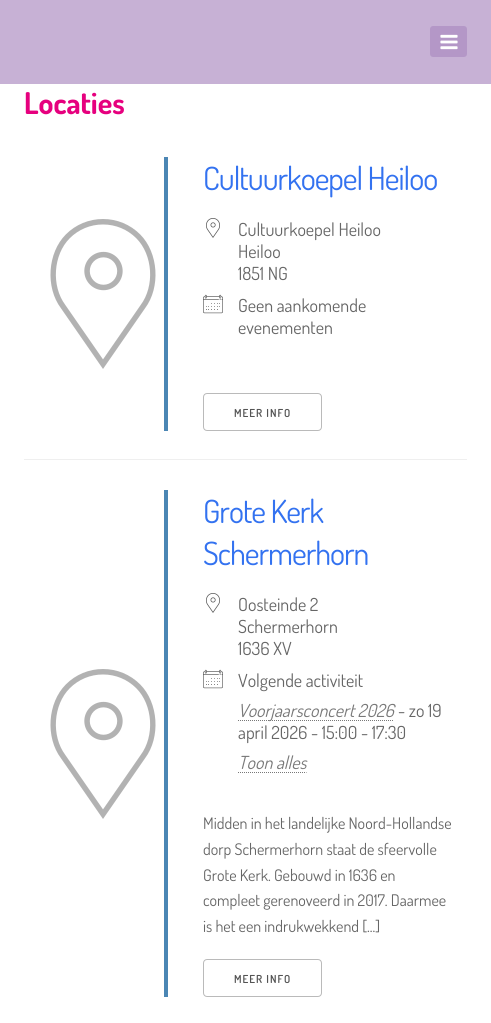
import math
import cairocffi as cairo

surface = cairo.ImageSurface(cairo.FORMAT_RGB24, 491, 1023)
ctx = cairo.Context(surface)
options = cairo.FontOptions()
options.set_hint_metrics(cairo.HINT_METRICS_OFF)
options.set_hint_style(cairo.HINT_STYLE_NONE)
ctx.set_font_options(options)
ctx.set_miter_limit(4)


def rgb(r, g, b):
    ctx.set_source_rgb(r / 255, g / 255, b / 255)


def face(family, size, italic, bold):
    ctx.select_font_face(family, cairo.FONT_SLANT_ITALIC if italic else cairo.FONT_SLANT_NORMAL, cairo.FONT_WEIGHT_BOLD if bold else cairo.FONT_WEIGHT_NORMAL)
    ctx.set_font_size(size)


def label(x, y, s):
    ctx.move_to(x, y)
    ctx.show_text(s)


def tracked(x, y, s, letter, word):
    ctx.move_to(x, y)
    for ch in s:
        ctx.show_text(ch)
        ctx.rel_move_to(letter + word * (ch == ' '), 0)


def rect(x, y, w, h):
    ctx.rectangle(x, y, w, h)
    ctx.fill()


def rrect(x, y, w, h, r):
    ctx.new_sub_path()
    for i, (u, v) in enumerate([(x + w - r, y + h - r), (x + r, y + h - r), (x + r, y + r), (x + w - r, y + r)]):
        ctx.arc(u, v, r, i * math.pi / 2, (i + 1) * math.pi / 2)
    ctx.close_path()


def image(path, x, y, w, h):
    ctx.save()
    ctx.set_source_surface(cairo.ImageSurface.create_from_png(path), x, y)
    ctx.rectangle(x, y, w, h)
    ctx.fill()
    ctx.restore()


rgb(255, 255, 255)
ctx.paint()
rgb(199, 177, 213)
rect(0, 0, 491, 84)
rgb(180, 151, 199)
rrect(430, 26, 37, 31, 3)
ctx.fill()
image('image0.png', 440, 34, 18, 16)
face('Dosis', 30, 0, 1)
rgb(230, 0, 126)
label(24, 114, 'Locaties')
image('image1.png', 50, 219, 106, 150)
rgb(75, 134, 180)
rect(164, 157, 4, 274)
face('Dosis', 32, 0, 0)
rgb(51, 114, 240)
tracked(203, 190, 'Cultuurkoepel Heiloo', -1, 0)
image('image2.png', 206, 218, 14, 20)
face('Dosis', 18, 0, 0)
rgb(102, 102, 102)
label(238, 236, 'Cultuurkoepel Heiloo')
label(238, 258, 'Heiloo')
label(238, 280, '1851 NG')
image('image3.png', 203, 294, 20, 20)
label(238, 312, 'Geen aankomende')
label(238, 334, 'evenementen')
rrect(203.5, 393.5, 118, 37, 3.5)
rgb(186, 186, 186)
ctx.set_line_width(1)
ctx.stroke()
face('Dosis SemiBold', 11, 0, 0)
rgb(84, 84, 84)
tracked(234, 417, 'MEER INFO', 1, 0)
rgb(239, 239, 239)
rect(24, 459, 443, 1)
image('image1.png', 50, 669, 106, 150)
rgb(75, 134, 180)
rect(164, 490, 4, 507)
face('Dosis', 32, 0, 0)
rgb(51, 114, 240)
tracked(203, 523, 'Grote Kerk', -1, 0)
tracked(203, 565, 'Schermerhorn', -1, 0)
image('image2.png', 206, 593, 14, 20)
face('Dosis', 18, 0, 0)
rgb(102, 102, 102)
label(238, 611, 'Oosteinde 2')
label(238, 633, 'Schermerhorn')
label(238, 655, '1636 XV')
image('image3.png', 203, 669, 20, 20)
label(238, 687, 'Volgende activiteit')
ctx.new_path()
ctx.move_to(238, 720.5)
ctx.line_to(394, 720.5)
rgb(120, 120, 120)
ctx.set_dash([1, 1])
ctx.stroke()
face('Dosis', 18, 1, 0)
label(238, 717, 'Voorjaarsconcert 2026')
face('Dosis', 18, 0, 0)
rgb(102, 102, 102)
label(398, 717, '- zo 19')
label(238, 739, 'april 2026 - 15:00 - 17:30')
face('Dosis', 18, 1, 0)
rgb(120, 120, 120)
label(238, 769, 'Toon alles')
ctx.new_path()
ctx.move_to(238, 772.5)
ctx.line_to(306.5, 772.5)
ctx.stroke()
face('Dosis', 16, 0, 0)
rgb(102, 102, 102)
label(203, 829, 'Midden in het landelijke Noord-Hollandse')
label(203, 855, 'dorp Schermerhorn staat de sfeervolle')
label(203, 881, 'Grote Kerk. Gebouwd in 1636 en')
label(203, 906, 'compleet gerenoveerd in 2017. Daarmee')
label(203, 932, 'is het een indrukwekkend [...]')
rrect(203.5, 959.5, 118, 37, 3.5)
rgb(186, 186, 186)
ctx.set_dash([])
ctx.stroke()
face('Dosis SemiBold', 11, 0, 0)
rgb(84, 84, 84)
tracked(234, 983, 'MEER INFO', 1, 0)
surface.write_to_png('render.png')
